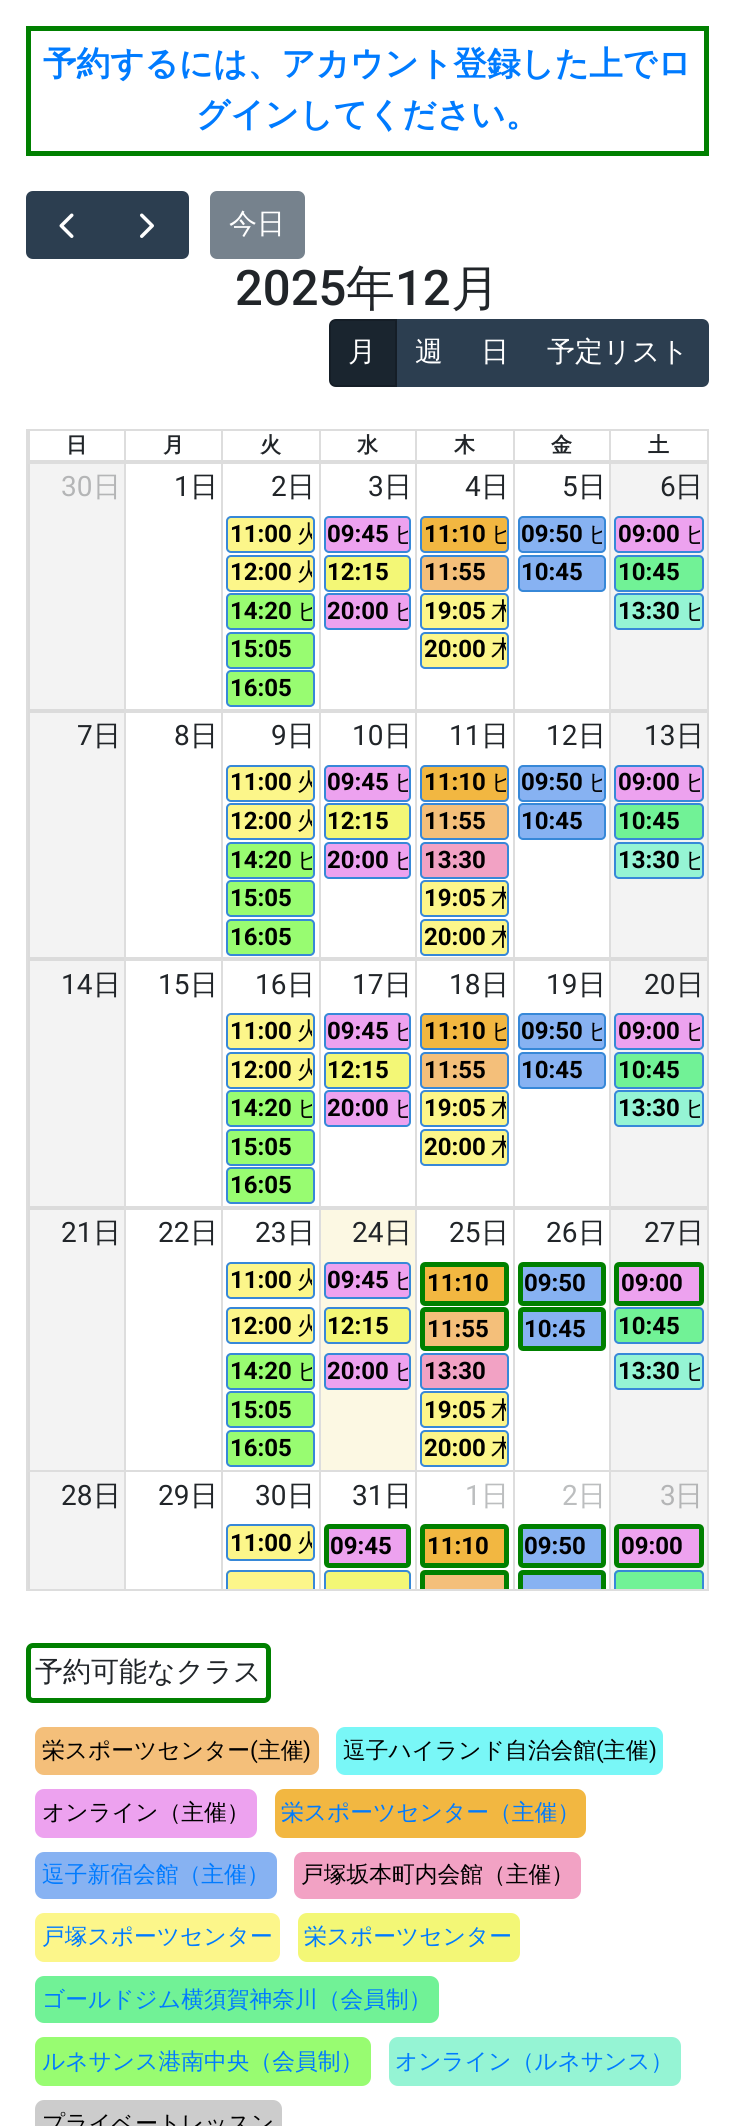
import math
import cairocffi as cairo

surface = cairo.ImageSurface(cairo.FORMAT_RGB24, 735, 2126)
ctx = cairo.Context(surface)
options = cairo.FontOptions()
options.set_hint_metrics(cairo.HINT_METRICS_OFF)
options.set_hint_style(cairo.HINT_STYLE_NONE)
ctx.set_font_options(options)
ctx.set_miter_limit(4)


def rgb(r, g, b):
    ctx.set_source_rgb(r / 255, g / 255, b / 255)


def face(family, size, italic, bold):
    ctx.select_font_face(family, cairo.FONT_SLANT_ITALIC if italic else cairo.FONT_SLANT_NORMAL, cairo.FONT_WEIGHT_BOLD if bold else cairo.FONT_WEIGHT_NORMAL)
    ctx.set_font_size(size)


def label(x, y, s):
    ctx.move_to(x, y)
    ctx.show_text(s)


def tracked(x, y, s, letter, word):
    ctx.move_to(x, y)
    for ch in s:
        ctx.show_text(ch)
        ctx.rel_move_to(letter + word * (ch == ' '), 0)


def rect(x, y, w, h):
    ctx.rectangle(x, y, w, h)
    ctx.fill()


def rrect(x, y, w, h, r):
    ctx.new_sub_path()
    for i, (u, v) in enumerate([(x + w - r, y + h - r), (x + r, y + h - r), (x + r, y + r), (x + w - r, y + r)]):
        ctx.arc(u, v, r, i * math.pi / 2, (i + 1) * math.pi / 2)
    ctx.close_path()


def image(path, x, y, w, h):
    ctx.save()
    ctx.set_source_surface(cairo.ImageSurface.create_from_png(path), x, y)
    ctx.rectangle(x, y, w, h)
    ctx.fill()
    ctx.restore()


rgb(255, 255, 255)
ctx.paint()
rgb(243, 243, 243)
rect(30, 1472, 94, 117)
rect(611, 1210, 96, 260)
rect(30, 1210, 94, 260)
rect(611, 961, 96, 245)
rect(30, 961, 94, 245)
rect(611, 713, 96, 244)
rect(30, 713, 94, 244)
rect(611, 464, 96, 245)
rect(30, 464, 94, 245)
ctx.rectangle(28.5, 28.5, 678, 125)
rgb(0, 128, 0)
ctx.set_line_width(5)
ctx.stroke()
face('WenQuanYi Zen Hei', 33.6, 0, 1)
rgb(0, 123, 255)
label(43, 75, '予約するには、アカウント登録した上でロ')
label(196, 126, 'グインしてください。')
rgb(44, 62, 80)
ctx.new_path()
ctx.move_to(33, 192)
ctx.line_to(108, 192)
ctx.line_to(108, 258)
ctx.line_to(33, 258)
ctx.curve_to(29.5, 258, 27, 255.5, 27, 252)
ctx.line_to(27, 198)
ctx.curve_to(27, 194.5, 29.5, 192, 33, 192)
ctx.close_path()
ctx.fill_preserve()
ctx.set_line_width(2)
ctx.stroke()
image('image0.png', 59, 213, 15, 25)
ctx.new_path()
ctx.move_to(108, 192)
ctx.line_to(182, 192)
ctx.curve_to(185.5, 192, 188, 194.5, 188, 198)
ctx.line_to(188, 252)
ctx.curve_to(188, 255.5, 185.5, 258, 182, 258)
ctx.line_to(108, 258)
ctx.close_path()
ctx.fill_preserve()
ctx.stroke()
image('image1.png', 140, 213, 14, 25)
rgb(118, 130, 141)
rrect(211, 192, 93, 66, 6)
ctx.fill_preserve()
ctx.stroke()
face('WenQuanYi Zen Hei Medium', 28, 0, 0)
rgb(255, 255, 255)
label(229, 233, '今日')
face('Roboto Medium', 49, 0, 0)
rgb(33, 37, 41)
label(235, 305, '2025')
face('WenQuanYi Zen Hei Medium', 49, 0, 0)
label(346, 305, '年')
face('Roboto Medium', 49, 0, 0)
label(395, 305, '12')
face('WenQuanYi Zen Hei Medium', 49, 0, 0)
label(451, 305, '月')
rgb(26, 37, 47)
ctx.new_path()
ctx.move_to(336, 320)
ctx.line_to(396, 320)
ctx.line_to(396, 386)
ctx.line_to(336, 386)
ctx.curve_to(332.5, 386, 330, 383.5, 330, 380)
ctx.line_to(330, 326)
ctx.curve_to(330, 322.5, 332.5, 320, 336, 320)
ctx.close_path()
ctx.fill_preserve()
rgb(21, 30, 39)
ctx.stroke()
face('WenQuanYi Zen Hei Medium', 28, 0, 0)
rgb(255, 255, 255)
label(348, 361, '月')
rgb(44, 62, 80)
rect(397, 319, 130, 68)
rgb(255, 255, 255)
label(415, 361, '週')
label(481, 361, '日')
rgb(44, 62, 80)
ctx.new_path()
ctx.move_to(528, 320)
ctx.line_to(702, 320)
ctx.curve_to(705.5, 320, 708, 322.5, 708, 326)
ctx.line_to(708, 380)
ctx.curve_to(708, 383.5, 705.5, 386, 702, 386)
ctx.line_to(528, 386)
ctx.close_path()
ctx.fill_preserve()
ctx.stroke()
rgb(255, 255, 255)
label(547, 361, '予定リスト')
rgb(221, 221, 221)
rect(26, 429, 683, 2)
rect(26, 462, 683, 2)
rect(707, 462, 2, 1129)
rect(707, 429, 2, 35)
rect(26, 1589, 683, 2)
rect(26, 462, 2, 1129)
rect(26, 429, 2, 35)
rect(609, 460, 100, 2)
rect(609, 429, 2, 33)
rect(513, 460, 98, 2)
rect(513, 429, 2, 33)
rect(415, 460, 100, 2)
rect(415, 429, 2, 33)
rect(319, 460, 98, 2)
rect(319, 429, 2, 33)
rect(221, 460, 99, 2)
rect(221, 429, 2, 33)
rect(124, 460, 98, 2)
rect(124, 429, 2, 33)
rect(28, 460, 98, 2)
rect(28, 429, 2, 33)
face('WenQuanYi Zen Hei', 21, 0, 1)
rgb(33, 37, 41)
label(66, 452, '日')
label(163, 452, '月')
label(260, 452, '火')
label(357, 452, '水')
label(454, 452, '木')
label(551, 452, '金')
label(648, 452, '土')
rgb(219, 219, 219)
rect(28, 709, 96, 4)
rect(28, 464, 2, 247)
rgb(221, 221, 221)
rect(609, 464, 2, 744)
rect(513, 709, 98, 4)
rect(513, 464, 2, 247)
rect(415, 709, 100, 2)
rect(415, 464, 2, 247)
rect(319, 709, 98, 2)
rect(319, 464, 2, 247)
rect(221, 709, 99, 2)
rect(221, 464, 2, 247)
rect(124, 709, 98, 2)
rect(124, 464, 2, 247)
rgb(219, 219, 219)
rect(611, 709, 96, 4)
face('Roboto', 28, 0, 0)
rgb(180, 181, 182)
label(61, 496, '30')
face('WenQuanYi Zen Hei Medium', 28, 0, 0)
label(93, 496, '日')
face('Roboto', 28, 0, 0)
rgb(33, 37, 41)
label(174, 496, '1')
face('WenQuanYi Zen Hei Medium', 28, 0, 0)
label(190, 496, '日')
face('Roboto', 28, 0, 0)
label(271, 496, '2')
face('WenQuanYi Zen Hei Medium', 28, 0, 0)
label(287, 496, '日')
face('Roboto', 28, 0, 0)
label(368, 496, '3')
face('WenQuanYi Zen Hei Medium', 28, 0, 0)
label(384, 496, '日')
face('Roboto', 28, 0, 0)
label(465, 496, '4')
face('WenQuanYi Zen Hei Medium', 28, 0, 0)
label(481, 496, '日')
face('Roboto', 28, 0, 0)
label(562, 496, '5')
face('WenQuanYi Zen Hei Medium', 28, 0, 0)
label(578, 496, '日')
face('Roboto', 28, 0, 0)
label(660, 496, '6')
face('WenQuanYi Zen Hei Medium', 28, 0, 0)
label(675, 496, '日')
rgb(252, 246, 138)
rrect(227, 517, 87, 35, 4)
ctx.fill_preserve()
rgb(55, 136, 216)
ctx.stroke()
face('Roboto', 24, 0, 1)
rgb(0, 0, 0)
label(230, 542, '11:00')
ctx.save()
ctx.rectangle(229, 518, 83, 33)
ctx.clip()
face('WenQuanYi Zen Hei Medium', 24, 0, 0)
tracked(297, 542, '火', 0, -1)
ctx.restore()
rgb(237, 162, 239)
rrect(325, 517, 85, 35, 4)
ctx.fill_preserve()
rgb(55, 136, 216)
ctx.stroke()
rgb(0, 0, 0)
label(327, 542, '09:45')
ctx.save()
ctx.rectangle(327, 518, 81, 33)
ctx.clip()
face('WenQuanYi Zen Hei Medium', 24, 0, 0)
label(394, 542, 'ピ')
ctx.restore()
rgb(242, 183, 65)
rrect(421, 517, 87, 35, 4)
ctx.fill_preserve()
rgb(55, 136, 216)
ctx.stroke()
rgb(0, 0, 0)
label(424, 542, '11:10')
ctx.save()
ctx.rectangle(424, 518, 82, 33)
ctx.clip()
face('WenQuanYi Zen Hei Medium', 24, 0, 0)
label(491, 542, 'ピ')
ctx.restore()
rgb(135, 178, 242)
rrect(519, 517, 86, 35, 4)
ctx.fill_preserve()
rgb(55, 136, 216)
ctx.stroke()
ctx.save()
ctx.rectangle(522, 518, 80, 33)
ctx.clip()
rgb(0, 0, 0)
label(521, 542, '09:50')
face('WenQuanYi Zen Hei Medium', 24, 0, 0)
tracked(588, 542, 'ピ', 0, -1)
ctx.restore()
rgb(237, 162, 239)
rrect(615, 517, 88, 35, 4)
ctx.fill_preserve()
rgb(55, 136, 216)
ctx.stroke()
rgb(0, 0, 0)
label(618, 542, '09:00')
ctx.save()
ctx.rectangle(618, 518, 82, 33)
ctx.clip()
face('WenQuanYi Zen Hei Medium', 24, 0, 0)
label(685, 542, 'ピ')
ctx.restore()
rgb(252, 246, 138)
rrect(227, 556, 87, 35, 4)
ctx.fill_preserve()
rgb(55, 136, 216)
ctx.stroke()
rgb(0, 0, 0)
label(230, 580, '12:00')
ctx.save()
ctx.rectangle(229, 557, 83, 33)
ctx.clip()
face('WenQuanYi Zen Hei Medium', 24, 0, 0)
tracked(297, 580, '火', 0, -1)
ctx.restore()
rgb(243, 247, 118)
rrect(325, 556, 85, 35, 4)
ctx.fill_preserve()
rgb(55, 136, 216)
ctx.stroke()
rgb(0, 0, 0)
label(327, 580, '12:15')
rgb(244, 191, 122)
rrect(421, 556, 87, 35, 4)
ctx.fill_preserve()
rgb(55, 136, 216)
ctx.stroke()
rgb(0, 0, 0)
label(424, 580, '11:55')
rgb(135, 178, 242)
rrect(519, 556, 86, 35, 4)
ctx.fill_preserve()
rgb(55, 136, 216)
ctx.stroke()
rgb(0, 0, 0)
label(521, 580, '10:45')
rgb(113, 242, 150)
rrect(615, 556, 88, 35, 4)
ctx.fill_preserve()
rgb(55, 136, 216)
ctx.stroke()
rgb(0, 0, 0)
label(618, 580, '10:45')
rgb(152, 252, 113)
rrect(227, 594, 87, 35, 4)
ctx.fill_preserve()
rgb(55, 136, 216)
ctx.stroke()
rgb(0, 0, 0)
label(230, 619, '14:20')
ctx.save()
ctx.rectangle(229, 595, 83, 33)
ctx.clip()
face('WenQuanYi Zen Hei Medium', 24, 0, 0)
label(297, 619, 'ピ')
ctx.restore()
rgb(237, 162, 239)
rrect(325, 594, 85, 35, 4)
ctx.fill_preserve()
rgb(55, 136, 216)
ctx.stroke()
rgb(0, 0, 0)
label(327, 619, '20:00')
ctx.save()
ctx.rectangle(327, 595, 81, 33)
ctx.clip()
face('WenQuanYi Zen Hei Medium', 24, 0, 0)
label(394, 619, 'ピ')
ctx.restore()
rgb(252, 246, 138)
rrect(421, 594, 87, 35, 4)
ctx.fill_preserve()
rgb(55, 136, 216)
ctx.stroke()
rgb(0, 0, 0)
label(424, 619, '19:05')
ctx.save()
ctx.rectangle(424, 595, 82, 33)
ctx.clip()
face('WenQuanYi Zen Hei Medium', 24, 0, 0)
tracked(491, 619, '木', 0, -1)
ctx.restore()
rgb(149, 244, 212)
rrect(615, 594, 88, 35, 4)
ctx.fill_preserve()
rgb(55, 136, 216)
ctx.stroke()
rgb(0, 0, 0)
label(618, 619, '13:30')
ctx.save()
ctx.rectangle(618, 595, 82, 33)
ctx.clip()
face('WenQuanYi Zen Hei Medium', 24, 0, 0)
tracked(685, 619, 'ピ', 0, -1)
ctx.restore()
rgb(152, 252, 113)
rrect(227, 633, 87, 35, 4)
ctx.fill_preserve()
rgb(55, 136, 216)
ctx.stroke()
rgb(0, 0, 0)
label(230, 657, '15:05')
rgb(252, 246, 138)
rrect(421, 633, 87, 35, 4)
ctx.fill_preserve()
rgb(55, 136, 216)
ctx.stroke()
rgb(0, 0, 0)
label(424, 657, '20:00')
ctx.save()
ctx.rectangle(424, 634, 82, 33)
ctx.clip()
face('WenQuanYi Zen Hei Medium', 24, 0, 0)
label(491, 657, '木')
ctx.restore()
rgb(152, 252, 113)
rrect(227, 671, 87, 35, 4)
ctx.fill_preserve()
rgb(55, 136, 216)
ctx.stroke()
rgb(0, 0, 0)
label(230, 696, '16:05')
rgb(219, 219, 219)
rect(28, 957, 96, 4)
rect(28, 711, 2, 248)
rgb(221, 221, 221)
rect(513, 957, 98, 4)
rect(513, 711, 2, 248)
rect(415, 711, 100, 2)
rect(415, 957, 100, 2)
rect(415, 711, 2, 248)
rect(319, 711, 98, 2)
rect(319, 957, 98, 2)
rect(319, 711, 2, 248)
rect(221, 711, 99, 2)
rect(221, 957, 99, 2)
rect(221, 711, 2, 248)
rect(124, 711, 98, 2)
rect(124, 957, 98, 2)
rect(124, 711, 2, 248)
rgb(219, 219, 219)
rect(611, 957, 96, 4)
face('Roboto', 28, 0, 0)
rgb(33, 37, 41)
label(77, 745, '7')
face('WenQuanYi Zen Hei Medium', 28, 0, 0)
label(93, 745, '日')
face('Roboto', 28, 0, 0)
label(174, 745, '8')
face('WenQuanYi Zen Hei Medium', 28, 0, 0)
label(190, 745, '日')
face('Roboto', 28, 0, 0)
label(271, 745, '9')
face('WenQuanYi Zen Hei Medium', 28, 0, 0)
label(287, 745, '日')
face('Roboto', 28, 0, 0)
label(352, 745, '10')
face('WenQuanYi Zen Hei Medium', 28, 0, 0)
label(384, 745, '日')
face('Roboto', 28, 0, 0)
label(449, 745, '11')
face('WenQuanYi Zen Hei Medium', 28, 0, 0)
label(481, 745, '日')
face('Roboto', 28, 0, 0)
label(546, 745, '12')
face('WenQuanYi Zen Hei Medium', 28, 0, 0)
label(578, 745, '日')
face('Roboto', 28, 0, 0)
label(644, 745, '13')
face('WenQuanYi Zen Hei Medium', 28, 0, 0)
label(676, 745, '日')
rgb(252, 246, 138)
rrect(227, 766, 87, 35, 4)
ctx.fill_preserve()
rgb(55, 136, 216)
ctx.stroke()
face('Roboto', 24, 0, 1)
rgb(0, 0, 0)
label(230, 790, '11:00')
ctx.save()
ctx.rectangle(229, 767, 83, 33)
ctx.clip()
face('WenQuanYi Zen Hei Medium', 24, 0, 0)
tracked(297, 790, '火', 0, -1)
ctx.restore()
rgb(237, 162, 239)
rrect(325, 766, 85, 35, 4)
ctx.fill_preserve()
rgb(55, 136, 216)
ctx.stroke()
rgb(0, 0, 0)
label(327, 790, '09:45')
ctx.save()
ctx.rectangle(327, 767, 81, 33)
ctx.clip()
face('WenQuanYi Zen Hei Medium', 24, 0, 0)
label(394, 790, 'ピ')
ctx.restore()
rgb(242, 183, 65)
rrect(421, 766, 87, 35, 4)
ctx.fill_preserve()
rgb(55, 136, 216)
ctx.stroke()
rgb(0, 0, 0)
label(424, 790, '11:10')
ctx.save()
ctx.rectangle(424, 767, 82, 33)
ctx.clip()
face('WenQuanYi Zen Hei Medium', 24, 0, 0)
label(491, 790, 'ピ')
ctx.restore()
rgb(135, 178, 242)
rrect(519, 766, 86, 35, 4)
ctx.fill_preserve()
rgb(55, 136, 216)
ctx.stroke()
ctx.save()
ctx.rectangle(522, 767, 80, 33)
ctx.clip()
rgb(0, 0, 0)
label(521, 790, '09:50')
face('WenQuanYi Zen Hei Medium', 24, 0, 0)
tracked(588, 790, 'ピ', 0, -1)
ctx.restore()
rgb(237, 162, 239)
rrect(615, 766, 88, 35, 4)
ctx.fill_preserve()
rgb(55, 136, 216)
ctx.stroke()
rgb(0, 0, 0)
label(618, 790, '09:00')
ctx.save()
ctx.rectangle(618, 767, 82, 33)
ctx.clip()
face('WenQuanYi Zen Hei Medium', 24, 0, 0)
label(685, 790, 'ピ')
ctx.restore()
rgb(252, 246, 138)
rrect(227, 804, 87, 35, 4)
ctx.fill_preserve()
rgb(55, 136, 216)
ctx.stroke()
rgb(0, 0, 0)
label(230, 829, '12:00')
ctx.save()
ctx.rectangle(229, 805, 83, 33)
ctx.clip()
face('WenQuanYi Zen Hei Medium', 24, 0, 0)
tracked(297, 829, '火', 0, -1)
ctx.restore()
rgb(243, 247, 118)
rrect(325, 804, 85, 35, 4)
ctx.fill_preserve()
rgb(55, 136, 216)
ctx.stroke()
rgb(0, 0, 0)
label(327, 829, '12:15')
rgb(244, 191, 122)
rrect(421, 804, 87, 35, 4)
ctx.fill_preserve()
rgb(55, 136, 216)
ctx.stroke()
rgb(0, 0, 0)
label(424, 829, '11:55')
rgb(135, 178, 242)
rrect(519, 804, 86, 35, 4)
ctx.fill_preserve()
rgb(55, 136, 216)
ctx.stroke()
rgb(0, 0, 0)
label(521, 829, '10:45')
rgb(113, 242, 150)
rrect(615, 804, 88, 35, 4)
ctx.fill_preserve()
rgb(55, 136, 216)
ctx.stroke()
rgb(0, 0, 0)
label(618, 829, '10:45')
rgb(152, 252, 113)
rrect(227, 843, 87, 35, 4)
ctx.fill_preserve()
rgb(55, 136, 216)
ctx.stroke()
rgb(0, 0, 0)
label(230, 868, '14:20')
ctx.save()
ctx.rectangle(229, 844, 83, 33)
ctx.clip()
face('WenQuanYi Zen Hei Medium', 24, 0, 0)
label(297, 868, 'ピ')
ctx.restore()
rgb(237, 162, 239)
rrect(325, 843, 85, 35, 4)
ctx.fill_preserve()
rgb(55, 136, 216)
ctx.stroke()
rgb(0, 0, 0)
label(327, 868, '20:00')
ctx.save()
ctx.rectangle(327, 844, 81, 33)
ctx.clip()
face('WenQuanYi Zen Hei Medium', 24, 0, 0)
label(394, 868, 'ピ')
ctx.restore()
rgb(242, 162, 196)
rrect(421, 843, 87, 35, 4)
ctx.fill_preserve()
rgb(55, 136, 216)
ctx.stroke()
rgb(0, 0, 0)
label(424, 868, '13:30')
rgb(149, 244, 212)
rrect(615, 843, 88, 35, 4)
ctx.fill_preserve()
rgb(55, 136, 216)
ctx.stroke()
rgb(0, 0, 0)
label(618, 868, '13:30')
ctx.save()
ctx.rectangle(618, 844, 82, 33)
ctx.clip()
face('WenQuanYi Zen Hei Medium', 24, 0, 0)
tracked(685, 868, 'ピ', 0, -1)
ctx.restore()
rgb(152, 252, 113)
rrect(227, 881, 87, 35, 4)
ctx.fill_preserve()
rgb(55, 136, 216)
ctx.stroke()
rgb(0, 0, 0)
label(230, 906, '15:05')
rgb(252, 246, 138)
rrect(421, 881, 87, 35, 4)
ctx.fill_preserve()
rgb(55, 136, 216)
ctx.stroke()
rgb(0, 0, 0)
label(424, 906, '19:05')
ctx.save()
ctx.rectangle(424, 882, 82, 33)
ctx.clip()
face('WenQuanYi Zen Hei Medium', 24, 0, 0)
tracked(491, 906, '木', 0, -1)
ctx.restore()
rgb(152, 252, 113)
rrect(227, 920, 87, 35, 4)
ctx.fill_preserve()
rgb(55, 136, 216)
ctx.stroke()
rgb(0, 0, 0)
label(230, 945, '16:05')
rgb(252, 246, 138)
rrect(421, 920, 87, 35, 4)
ctx.fill_preserve()
rgb(55, 136, 216)
ctx.stroke()
rgb(0, 0, 0)
label(424, 945, '20:00')
ctx.save()
ctx.rectangle(424, 921, 82, 33)
ctx.clip()
face('WenQuanYi Zen Hei Medium', 24, 0, 0)
label(491, 945, '木')
ctx.restore()
rgb(219, 219, 219)
rect(28, 1206, 96, 4)
rect(28, 959, 2, 511)
rgb(221, 221, 221)
rect(513, 1206, 98, 2)
rect(513, 959, 2, 249)
rect(415, 959, 100, 2)
rect(415, 1206, 100, 2)
rect(415, 959, 2, 249)
rect(319, 959, 98, 2)
rect(319, 1206, 98, 2)
rect(319, 959, 2, 249)
rect(221, 959, 99, 2)
rect(221, 1206, 99, 2)
rect(221, 959, 2, 249)
rect(124, 959, 98, 2)
rect(124, 1206, 98, 2)
rect(124, 959, 2, 249)
rgb(219, 219, 219)
rect(611, 1206, 96, 4)
face('Roboto', 28, 0, 0)
rgb(33, 37, 41)
label(61, 994, '14')
face('WenQuanYi Zen Hei Medium', 28, 0, 0)
label(93, 994, '日')
face('Roboto', 28, 0, 0)
label(158, 994, '15')
face('WenQuanYi Zen Hei Medium', 28, 0, 0)
label(190, 994, '日')
face('Roboto', 28, 0, 0)
label(255, 994, '16')
face('WenQuanYi Zen Hei Medium', 28, 0, 0)
label(287, 994, '日')
face('Roboto', 28, 0, 0)
label(352, 994, '17')
face('WenQuanYi Zen Hei Medium', 28, 0, 0)
label(384, 994, '日')
face('Roboto', 28, 0, 0)
label(449, 994, '18')
face('WenQuanYi Zen Hei Medium', 28, 0, 0)
label(481, 994, '日')
face('Roboto', 28, 0, 0)
label(546, 994, '19')
face('WenQuanYi Zen Hei Medium', 28, 0, 0)
label(578, 994, '日')
face('Roboto', 28, 0, 0)
label(644, 994, '20')
face('WenQuanYi Zen Hei Medium', 28, 0, 0)
label(676, 994, '日')
rgb(252, 246, 138)
rrect(227, 1014, 87, 35, 4)
ctx.fill_preserve()
rgb(55, 136, 216)
ctx.stroke()
face('Roboto', 24, 0, 1)
rgb(0, 0, 0)
label(230, 1039, '11:00')
ctx.save()
ctx.rectangle(229, 1015, 83, 33)
ctx.clip()
face('WenQuanYi Zen Hei Medium', 24, 0, 0)
tracked(297, 1039, '火', 0, -1)
ctx.restore()
rgb(237, 162, 239)
rrect(325, 1014, 85, 35, 4)
ctx.fill_preserve()
rgb(55, 136, 216)
ctx.stroke()
rgb(0, 0, 0)
label(327, 1039, '09:45')
ctx.save()
ctx.rectangle(327, 1015, 81, 33)
ctx.clip()
face('WenQuanYi Zen Hei Medium', 24, 0, 0)
label(394, 1039, 'ピ')
ctx.restore()
rgb(242, 183, 65)
rrect(421, 1014, 87, 35, 4)
ctx.fill_preserve()
rgb(55, 136, 216)
ctx.stroke()
rgb(0, 0, 0)
label(424, 1039, '11:10')
ctx.save()
ctx.rectangle(424, 1015, 82, 33)
ctx.clip()
face('WenQuanYi Zen Hei Medium', 24, 0, 0)
label(491, 1039, 'ピ')
ctx.restore()
rgb(135, 178, 242)
rrect(519, 1014, 86, 35, 4)
ctx.fill_preserve()
rgb(55, 136, 216)
ctx.stroke()
ctx.save()
ctx.rectangle(522, 1015, 80, 33)
ctx.clip()
rgb(0, 0, 0)
label(521, 1039, '09:50')
face('WenQuanYi Zen Hei Medium', 24, 0, 0)
tracked(588, 1039, 'ピ', 0, -1)
ctx.restore()
rgb(237, 162, 239)
rrect(615, 1014, 88, 35, 4)
ctx.fill_preserve()
rgb(55, 136, 216)
ctx.stroke()
rgb(0, 0, 0)
label(618, 1039, '09:00')
ctx.save()
ctx.rectangle(618, 1015, 82, 33)
ctx.clip()
face('WenQuanYi Zen Hei Medium', 24, 0, 0)
label(685, 1039, 'ピ')
ctx.restore()
rgb(252, 246, 138)
rrect(227, 1053, 87, 35, 4)
ctx.fill_preserve()
rgb(55, 136, 216)
ctx.stroke()
rgb(0, 0, 0)
label(230, 1078, '12:00')
ctx.save()
ctx.rectangle(229, 1054, 83, 33)
ctx.clip()
face('WenQuanYi Zen Hei Medium', 24, 0, 0)
tracked(297, 1078, '火', 0, -1)
ctx.restore()
rgb(243, 247, 118)
rrect(325, 1053, 85, 35, 4)
ctx.fill_preserve()
rgb(55, 136, 216)
ctx.stroke()
rgb(0, 0, 0)
label(327, 1078, '12:15')
rgb(244, 191, 122)
rrect(421, 1053, 87, 35, 4)
ctx.fill_preserve()
rgb(55, 136, 216)
ctx.stroke()
rgb(0, 0, 0)
label(424, 1078, '11:55')
rgb(135, 178, 242)
rrect(519, 1053, 86, 35, 4)
ctx.fill_preserve()
rgb(55, 136, 216)
ctx.stroke()
rgb(0, 0, 0)
label(521, 1078, '10:45')
rgb(113, 242, 150)
rrect(615, 1053, 88, 35, 4)
ctx.fill_preserve()
rgb(55, 136, 216)
ctx.stroke()
rgb(0, 0, 0)
label(618, 1078, '10:45')
rgb(152, 252, 113)
rrect(227, 1091, 87, 35, 4)
ctx.fill_preserve()
rgb(55, 136, 216)
ctx.stroke()
rgb(0, 0, 0)
label(230, 1116, '14:20')
ctx.save()
ctx.rectangle(229, 1092, 83, 33)
ctx.clip()
face('WenQuanYi Zen Hei Medium', 24, 0, 0)
label(297, 1116, 'ピ')
ctx.restore()
rgb(237, 162, 239)
rrect(325, 1091, 85, 35, 4)
ctx.fill_preserve()
rgb(55, 136, 216)
ctx.stroke()
rgb(0, 0, 0)
label(327, 1116, '20:00')
ctx.save()
ctx.rectangle(327, 1092, 81, 33)
ctx.clip()
face('WenQuanYi Zen Hei Medium', 24, 0, 0)
label(394, 1116, 'ピ')
ctx.restore()
rgb(252, 246, 138)
rrect(421, 1091, 87, 35, 4)
ctx.fill_preserve()
rgb(55, 136, 216)
ctx.stroke()
rgb(0, 0, 0)
label(424, 1116, '19:05')
ctx.save()
ctx.rectangle(424, 1092, 82, 33)
ctx.clip()
face('WenQuanYi Zen Hei Medium', 24, 0, 0)
tracked(491, 1116, '木', 0, -1)
ctx.restore()
rgb(149, 244, 212)
rrect(615, 1091, 88, 35, 4)
ctx.fill_preserve()
rgb(55, 136, 216)
ctx.stroke()
rgb(0, 0, 0)
label(618, 1116, '13:30')
ctx.save()
ctx.rectangle(618, 1092, 82, 33)
ctx.clip()
face('WenQuanYi Zen Hei Medium', 24, 0, 0)
tracked(685, 1116, 'ピ', 0, -1)
ctx.restore()
rgb(152, 252, 113)
rrect(227, 1130, 87, 35, 4)
ctx.fill_preserve()
rgb(55, 136, 216)
ctx.stroke()
rgb(0, 0, 0)
label(230, 1155, '15:05')
rgb(252, 246, 138)
rrect(421, 1130, 87, 35, 4)
ctx.fill_preserve()
rgb(55, 136, 216)
ctx.stroke()
rgb(0, 0, 0)
label(424, 1155, '20:00')
ctx.save()
ctx.rectangle(424, 1131, 82, 33)
ctx.clip()
face('WenQuanYi Zen Hei Medium', 24, 0, 0)
label(491, 1155, '木')
ctx.restore()
rgb(152, 252, 113)
rrect(227, 1168, 87, 35, 4)
ctx.fill_preserve()
rgb(55, 136, 216)
ctx.stroke()
rgb(0, 0, 0)
label(230, 1193, '16:05')
rgb(221, 221, 221)
rect(609, 1470, 98, 2)
rect(609, 1208, 2, 264)
rect(513, 1470, 98, 2)
rect(513, 1208, 98, 2)
rect(513, 1208, 2, 264)
rect(415, 1470, 100, 2)
rect(415, 1208, 100, 2)
rect(415, 1208, 2, 264)
rect(319, 1470, 98, 2)
rect(319, 1208, 98, 2)
rect(319, 1208, 2, 264)
rect(221, 1470, 99, 2)
rect(221, 1208, 99, 2)
rect(221, 1208, 2, 264)
rect(124, 1470, 98, 2)
rect(124, 1208, 98, 2)
rect(124, 1208, 2, 264)
rect(28, 1470, 98, 2)
rgb(252, 248, 227)
rect(321, 1210, 94, 260)
face('Roboto', 28, 0, 0)
rgb(33, 37, 41)
label(61, 1242, '21')
face('WenQuanYi Zen Hei Medium', 28, 0, 0)
label(93, 1242, '日')
face('Roboto', 28, 0, 0)
label(158, 1242, '22')
face('WenQuanYi Zen Hei Medium', 28, 0, 0)
label(190, 1242, '日')
face('Roboto', 28, 0, 0)
label(255, 1242, '23')
face('WenQuanYi Zen Hei Medium', 28, 0, 0)
label(287, 1242, '日')
face('Roboto', 28, 0, 0)
label(352, 1242, '24')
face('WenQuanYi Zen Hei Medium', 28, 0, 0)
label(384, 1242, '日')
face('Roboto', 28, 0, 0)
label(449, 1242, '25')
face('WenQuanYi Zen Hei Medium', 28, 0, 0)
label(481, 1242, '日')
face('Roboto', 28, 0, 0)
label(546, 1242, '26')
face('WenQuanYi Zen Hei Medium', 28, 0, 0)
label(578, 1242, '日')
face('Roboto', 28, 0, 0)
label(644, 1242, '27')
face('WenQuanYi Zen Hei Medium', 28, 0, 0)
label(676, 1242, '日')
rgb(252, 246, 138)
rrect(227, 1263, 87, 35, 4)
ctx.fill_preserve()
rgb(55, 136, 216)
ctx.stroke()
face('Roboto', 24, 0, 1)
rgb(0, 0, 0)
label(230, 1288, '11:00')
ctx.save()
ctx.rectangle(229, 1264, 83, 33)
ctx.clip()
face('WenQuanYi Zen Hei Medium', 24, 0, 0)
tracked(297, 1288, '火', 0, -1)
ctx.restore()
rgb(237, 162, 239)
rrect(325, 1263, 85, 35, 4)
ctx.fill_preserve()
rgb(55, 136, 216)
ctx.stroke()
rgb(0, 0, 0)
label(327, 1288, '09:45')
ctx.save()
ctx.rectangle(327, 1264, 81, 33)
ctx.clip()
face('WenQuanYi Zen Hei Medium', 24, 0, 0)
label(394, 1288, 'ピ')
ctx.restore()
rgb(242, 183, 65)
rrect(422.5, 1264.5, 84, 39, 2.5)
ctx.fill_preserve()
rgb(0, 128, 0)
ctx.set_line_width(5)
ctx.stroke()
rgb(0, 0, 0)
label(427, 1291, '11:10')
rgb(135, 178, 242)
rrect(520.5, 1264.5, 83, 39, 2.5)
ctx.fill_preserve()
rgb(0, 128, 0)
ctx.stroke()
rgb(0, 0, 0)
label(524, 1291, '09:50')
rgb(237, 162, 239)
rrect(616.5, 1264.5, 85, 39, 2.5)
ctx.fill_preserve()
rgb(0, 128, 0)
ctx.stroke()
rgb(0, 0, 0)
label(621, 1291, '09:00')
rgb(252, 246, 138)
rrect(227, 1308, 87, 35, 4)
ctx.fill_preserve()
rgb(55, 136, 216)
ctx.set_line_width(2)
ctx.stroke()
rgb(0, 0, 0)
label(230, 1334, '12:00')
ctx.save()
ctx.rectangle(229, 1309, 83, 33)
ctx.clip()
face('WenQuanYi Zen Hei Medium', 24, 0, 0)
tracked(297, 1334, '火', 0, -1)
ctx.restore()
rgb(243, 247, 118)
rrect(325, 1308, 85, 35, 4)
ctx.fill_preserve()
rgb(55, 136, 216)
ctx.stroke()
rgb(0, 0, 0)
label(327, 1334, '12:15')
rgb(244, 191, 122)
rrect(422.5, 1309.5, 84, 39, 2.5)
ctx.fill_preserve()
rgb(0, 128, 0)
ctx.set_line_width(5)
ctx.stroke()
rgb(0, 0, 0)
label(427, 1337, '11:55')
rgb(135, 178, 242)
rrect(520.5, 1309.5, 83, 39, 2.5)
ctx.fill_preserve()
rgb(0, 128, 0)
ctx.stroke()
rgb(0, 0, 0)
label(524, 1337, '10:45')
rgb(113, 242, 150)
rrect(615, 1308, 88, 35, 4)
ctx.fill_preserve()
rgb(55, 136, 216)
ctx.set_line_width(2)
ctx.stroke()
rgb(0, 0, 0)
label(618, 1334, '10:45')
rgb(152, 252, 113)
rrect(227, 1354, 87, 35, 4)
ctx.fill_preserve()
rgb(55, 136, 216)
ctx.stroke()
rgb(0, 0, 0)
label(230, 1379, '14:20')
ctx.save()
ctx.rectangle(229, 1355, 83, 33)
ctx.clip()
face('WenQuanYi Zen Hei Medium', 24, 0, 0)
label(297, 1379, 'ピ')
ctx.restore()
rgb(237, 162, 239)
rrect(325, 1354, 85, 35, 4)
ctx.fill_preserve()
rgb(55, 136, 216)
ctx.stroke()
rgb(0, 0, 0)
label(327, 1379, '20:00')
ctx.save()
ctx.rectangle(327, 1355, 81, 33)
ctx.clip()
face('WenQuanYi Zen Hei Medium', 24, 0, 0)
label(394, 1379, 'ピ')
ctx.restore()
rgb(242, 162, 196)
rrect(421, 1354, 87, 35, 4)
ctx.fill_preserve()
rgb(55, 136, 216)
ctx.stroke()
rgb(0, 0, 0)
label(424, 1379, '13:30')
rgb(149, 244, 212)
rrect(615, 1354, 88, 35, 4)
ctx.fill_preserve()
rgb(55, 136, 216)
ctx.stroke()
rgb(0, 0, 0)
label(618, 1379, '13:30')
ctx.save()
ctx.rectangle(618, 1355, 82, 33)
ctx.clip()
face('WenQuanYi Zen Hei Medium', 24, 0, 0)
tracked(685, 1379, 'ピ', 0, -1)
ctx.restore()
rgb(152, 252, 113)
rrect(227, 1392, 87, 35, 4)
ctx.fill_preserve()
rgb(55, 136, 216)
ctx.stroke()
rgb(0, 0, 0)
label(230, 1418, '15:05')
rgb(252, 246, 138)
rrect(421, 1392, 87, 35, 4)
ctx.fill_preserve()
rgb(55, 136, 216)
ctx.stroke()
rgb(0, 0, 0)
label(424, 1418, '19:05')
ctx.save()
ctx.rectangle(424, 1393, 82, 33)
ctx.clip()
face('WenQuanYi Zen Hei Medium', 24, 0, 0)
tracked(491, 1418, '木', 0, -1)
ctx.restore()
rgb(152, 252, 113)
rrect(227, 1431, 87, 35, 4)
ctx.fill_preserve()
rgb(55, 136, 216)
ctx.stroke()
rgb(0, 0, 0)
label(230, 1456, '16:05')
rgb(252, 246, 138)
rrect(421, 1431, 87, 35, 4)
ctx.fill_preserve()
rgb(55, 136, 216)
ctx.stroke()
rgb(0, 0, 0)
label(424, 1456, '20:00')
ctx.save()
ctx.rectangle(424, 1432, 82, 33)
ctx.clip()
face('WenQuanYi Zen Hei Medium', 24, 0, 0)
label(491, 1456, '木')
ctx.restore()
rgb(219, 219, 219)
rect(28, 1472, 2, 117)
rgb(221, 221, 221)
rect(124, 1470, 2, 119)
rect(221, 1470, 2, 119)
rect(319, 1470, 2, 119)
rect(415, 1470, 2, 119)
rect(513, 1470, 2, 119)
rect(609, 1470, 2, 119)
rgb(243, 243, 243)
rect(611, 1472, 96, 117)
face('Roboto', 28, 0, 0)
rgb(33, 37, 41)
label(61, 1505, '28')
face('WenQuanYi Zen Hei Medium', 28, 0, 0)
label(93, 1505, '日')
face('Roboto', 28, 0, 0)
label(158, 1505, '29')
face('WenQuanYi Zen Hei Medium', 28, 0, 0)
label(190, 1505, '日')
face('Roboto', 28, 0, 0)
label(255, 1505, '30')
face('WenQuanYi Zen Hei Medium', 28, 0, 0)
label(287, 1505, '日')
face('Roboto', 28, 0, 0)
label(352, 1505, '31')
face('WenQuanYi Zen Hei Medium', 28, 0, 0)
label(384, 1505, '日')
face('Roboto', 28, 0, 0)
rgb(188, 190, 191)
label(465, 1505, '1')
face('WenQuanYi Zen Hei Medium', 28, 0, 0)
label(481, 1505, '日')
face('Roboto', 28, 0, 0)
label(562, 1505, '2')
face('WenQuanYi Zen Hei Medium', 28, 0, 0)
label(578, 1505, '日')
face('Roboto', 28, 0, 0)
rgb(180, 181, 182)
label(660, 1505, '3')
face('WenQuanYi Zen Hei Medium', 28, 0, 0)
label(675, 1505, '日')
rgb(252, 246, 138)
rrect(227, 1525, 87, 35, 4)
ctx.fill_preserve()
rgb(55, 136, 216)
ctx.stroke()
face('Roboto', 24, 0, 1)
rgb(0, 0, 0)
label(230, 1551, '11:00')
ctx.save()
ctx.rectangle(229, 1526, 83, 33)
ctx.clip()
face('WenQuanYi Zen Hei Medium', 24, 0, 0)
tracked(297, 1551, '火', 0, -1)
ctx.restore()
rgb(237, 162, 239)
rrect(326.5, 1526.5, 82, 39, 2.5)
ctx.fill_preserve()
rgb(0, 128, 0)
ctx.set_line_width(5)
ctx.stroke()
rgb(0, 0, 0)
label(330, 1554, '09:45')
rgb(242, 183, 65)
rrect(422.5, 1526.5, 84, 39, 2.5)
ctx.fill_preserve()
rgb(0, 128, 0)
ctx.stroke()
rgb(0, 0, 0)
label(427, 1554, '11:10')
rgb(135, 178, 242)
rrect(520.5, 1526.5, 83, 39, 2.5)
ctx.fill_preserve()
rgb(0, 128, 0)
ctx.stroke()
rgb(0, 0, 0)
label(524, 1554, '09:50')
rgb(237, 162, 239)
rrect(616.5, 1526.5, 85, 39, 2.5)
ctx.fill_preserve()
rgb(0, 128, 0)
ctx.stroke()
rgb(0, 0, 0)
label(621, 1554, '09:00')
rgb(252, 246, 138)
ctx.new_path()
ctx.move_to(231, 1570)
ctx.line_to(310, 1570)
ctx.curve_to(313, 1570, 315, 1572, 315, 1575)
ctx.line_to(315, 1589)
ctx.line_to(226, 1589)
ctx.line_to(226, 1575)
ctx.curve_to(226, 1572, 228, 1570, 231, 1570)
ctx.close_path()
ctx.fill()
ctx.save()
ctx.rectangle(28, 464, 679, 1125)
ctx.clip()
rrect(227, 1571, 87, 35, 4)
rgb(55, 136, 216)
ctx.set_line_width(2)
ctx.stroke()
ctx.restore()
rgb(243, 247, 118)
ctx.new_path()
ctx.move_to(329, 1570)
ctx.line_to(406, 1570)
ctx.curve_to(409, 1570, 411, 1572, 411, 1575)
ctx.line_to(411, 1589)
ctx.line_to(324, 1589)
ctx.line_to(324, 1575)
ctx.curve_to(324, 1572, 326, 1570, 329, 1570)
ctx.close_path()
ctx.fill()
ctx.save()
ctx.rectangle(28, 464, 679, 1125)
ctx.clip()
rrect(325, 1571, 85, 35, 4)
rgb(55, 136, 216)
ctx.set_line_width(2)
ctx.stroke()
ctx.restore()
rgb(244, 191, 122)
ctx.new_path()
ctx.move_to(425, 1570)
ctx.line_to(504, 1570)
ctx.curve_to(507, 1570, 509, 1572, 509, 1575)
ctx.line_to(509, 1589)
ctx.line_to(420, 1589)
ctx.line_to(420, 1575)
ctx.curve_to(420, 1572, 422, 1570, 425, 1570)
ctx.close_path()
ctx.fill()
ctx.save()
ctx.rectangle(28, 464, 679, 1125)
ctx.clip()
rrect(422.5, 1572.5, 84, 39, 2.5)
rgb(0, 128, 0)
ctx.stroke()
ctx.restore()
rgb(135, 178, 242)
ctx.new_path()
ctx.move_to(523, 1570)
ctx.line_to(601, 1570)
ctx.curve_to(604, 1570, 606, 1572, 606, 1575)
ctx.line_to(606, 1589)
ctx.line_to(518, 1589)
ctx.line_to(518, 1575)
ctx.curve_to(518, 1572, 520, 1570, 523, 1570)
ctx.close_path()
ctx.fill()
ctx.save()
ctx.rectangle(28, 464, 679, 1125)
ctx.clip()
rrect(520.5, 1572.5, 83, 39, 2.5)
rgb(0, 128, 0)
ctx.stroke()
ctx.restore()
rgb(113, 242, 150)
ctx.new_path()
ctx.move_to(619, 1570)
ctx.line_to(699, 1570)
ctx.curve_to(702, 1570, 704, 1572, 704, 1575)
ctx.line_to(704, 1589)
ctx.line_to(614, 1589)
ctx.line_to(614, 1575)
ctx.curve_to(614, 1572, 616, 1570, 619, 1570)
ctx.close_path()
ctx.fill()
ctx.save()
ctx.rectangle(28, 464, 679, 1125)
ctx.clip()
rrect(615, 1571, 88, 35, 4)
rgb(55, 136, 216)
ctx.set_line_width(2)
ctx.stroke()
ctx.restore()
rrect(28.5, 1645.5, 240, 55, 4.5)
rgb(0, 128, 0)
ctx.stroke()
face('WenQuanYi Zen Hei Medium', 28, 0, 0)
rgb(33, 37, 41)
label(35, 1681, '予約可能なクラス')
rgb(244, 191, 122)
rrect(35, 1727, 284, 48, 9)
ctx.fill()
face('WenQuanYi Zen Hei Medium', 22.75, 0, 0)
rgb(0, 0, 0)
label(42, 1758, '栄スポーツセンター')
face('Roboto', 22.75, 0, 0)
label(250, 1758, '(')
face('WenQuanYi Zen Hei Medium', 22.75, 0, 0)
label(258, 1758, '主催')
face('Roboto', 22.75, 0, 0)
label(303, 1758, ')')
rgb(121, 247, 247)
rrect(336, 1727, 327, 48, 9)
ctx.fill()
face('WenQuanYi Zen Hei Medium', 22.75, 0, 0)
rgb(0, 0, 0)
label(343, 1758, '逗子ハイランド自治会館')
face('Roboto', 22.75, 0, 0)
label(596, 1758, '(')
face('WenQuanYi Zen Hei Medium', 22.75, 0, 0)
label(603, 1758, '主催')
face('Roboto', 22.75, 0, 0)
label(649, 1758, ')')
rgb(237, 162, 239)
rrect(35, 1789, 222, 49, 9)
ctx.fill()
face('WenQuanYi Zen Hei Medium', 22.75, 0, 0)
rgb(0, 0, 0)
label(42, 1820, 'オンライン（主催）')
rgb(242, 183, 65)
rrect(275, 1789, 311, 49, 9)
ctx.fill()
rgb(0, 123, 255)
label(281, 1820, '栄スポーツセンター（主催）')
rgb(135, 178, 242)
rrect(35, 1852, 242, 47, 9)
ctx.fill()
rgb(0, 123, 255)
label(42, 1882, '逗子新宿会館（主催）')
rgb(242, 162, 196)
rrect(294, 1852, 287, 47, 9)
ctx.fill()
rgb(0, 0, 0)
label(301, 1882, '戸塚坂本町内会館（主催）')
rgb(252, 246, 138)
rrect(35, 1913, 245, 49, 9)
ctx.fill()
rgb(0, 123, 255)
label(42, 1944, '戸塚スポーツセンター')
rgb(243, 247, 118)
rrect(298, 1913, 222, 49, 9)
ctx.fill()
rgb(0, 123, 255)
label(304, 1944, '栄スポーツセンター')
rgb(113, 242, 150)
rrect(35, 1976, 404, 47, 9)
ctx.fill()
rgb(0, 123, 255)
label(42, 2007, 'ゴールドジム横須賀神奈川（会員制）')
rgb(152, 252, 113)
rrect(35, 2037, 336, 49, 9)
ctx.fill()
rgb(0, 123, 255)
label(42, 2069, 'ルネサンス港南中央（会員制）')
rgb(149, 244, 212)
rrect(389, 2037, 292, 49, 9)
ctx.fill()
rgb(0, 123, 255)
label(395, 2069, 'オンライン（ルネサンス）')
rgb(204, 204, 204)
rrect(35, 2100, 247, 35, 9)
ctx.fill()
rgb(0, 0, 0)
label(42, 2131, 'プライベートレッスン')
surface.write_to_png('render.png')
